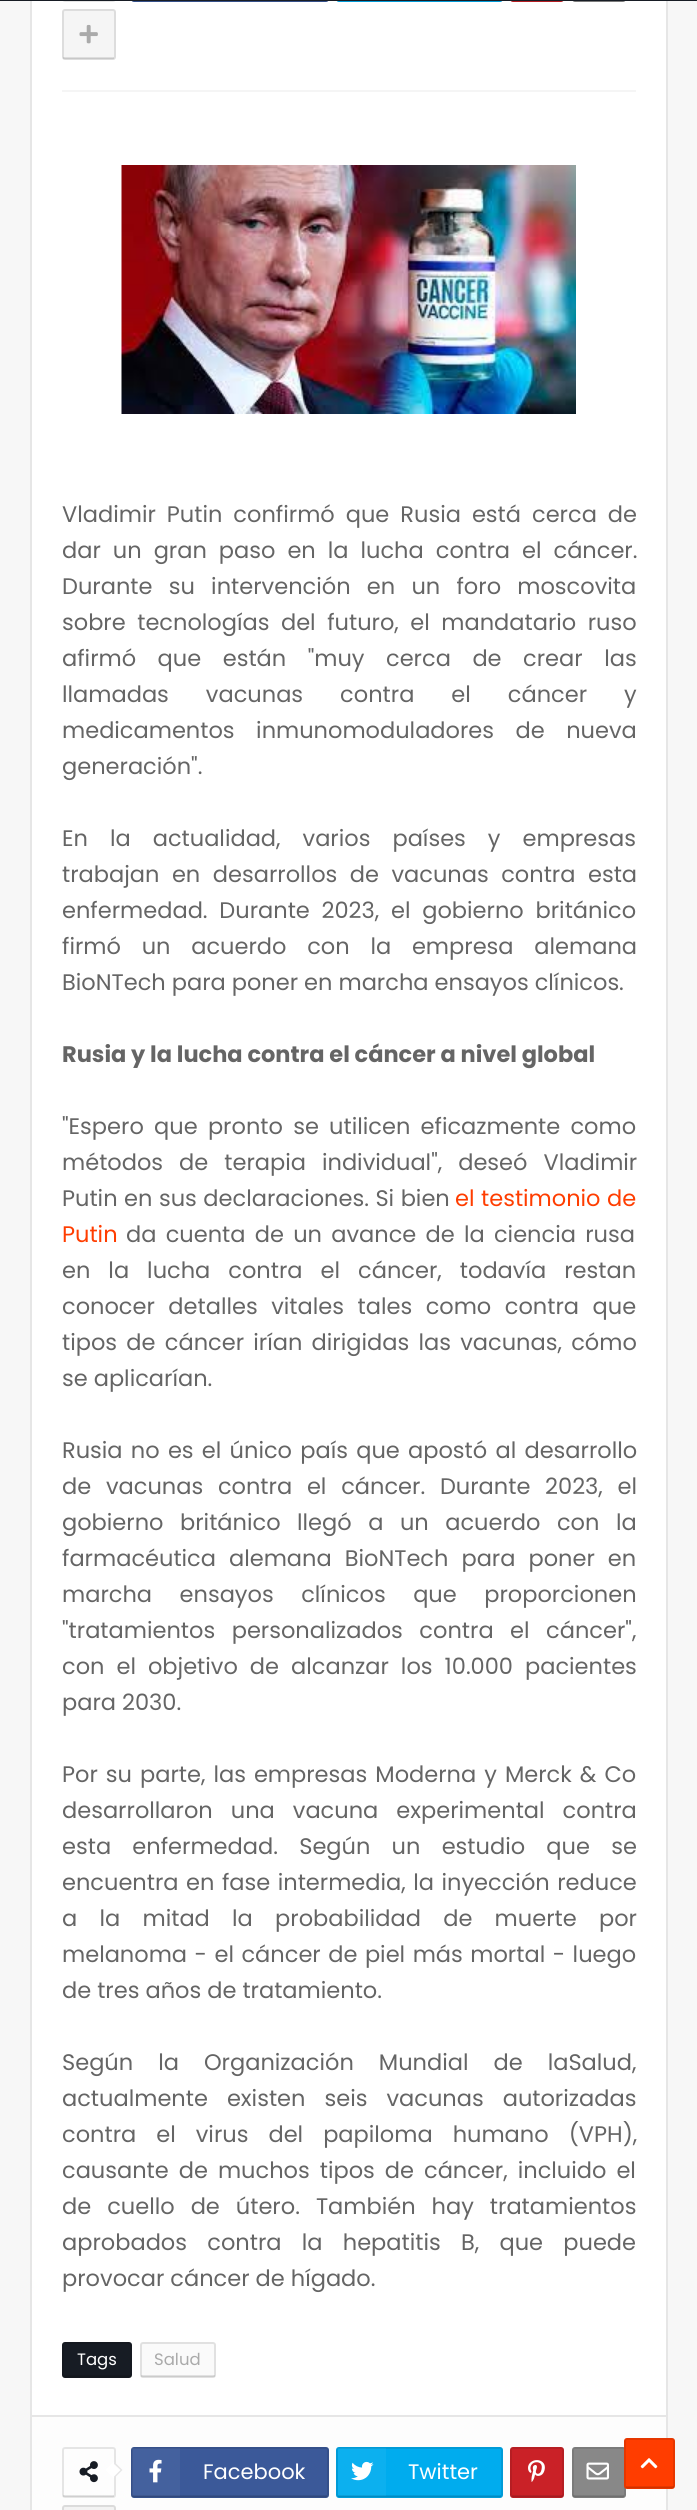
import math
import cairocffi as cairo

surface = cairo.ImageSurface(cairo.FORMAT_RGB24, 697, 2510)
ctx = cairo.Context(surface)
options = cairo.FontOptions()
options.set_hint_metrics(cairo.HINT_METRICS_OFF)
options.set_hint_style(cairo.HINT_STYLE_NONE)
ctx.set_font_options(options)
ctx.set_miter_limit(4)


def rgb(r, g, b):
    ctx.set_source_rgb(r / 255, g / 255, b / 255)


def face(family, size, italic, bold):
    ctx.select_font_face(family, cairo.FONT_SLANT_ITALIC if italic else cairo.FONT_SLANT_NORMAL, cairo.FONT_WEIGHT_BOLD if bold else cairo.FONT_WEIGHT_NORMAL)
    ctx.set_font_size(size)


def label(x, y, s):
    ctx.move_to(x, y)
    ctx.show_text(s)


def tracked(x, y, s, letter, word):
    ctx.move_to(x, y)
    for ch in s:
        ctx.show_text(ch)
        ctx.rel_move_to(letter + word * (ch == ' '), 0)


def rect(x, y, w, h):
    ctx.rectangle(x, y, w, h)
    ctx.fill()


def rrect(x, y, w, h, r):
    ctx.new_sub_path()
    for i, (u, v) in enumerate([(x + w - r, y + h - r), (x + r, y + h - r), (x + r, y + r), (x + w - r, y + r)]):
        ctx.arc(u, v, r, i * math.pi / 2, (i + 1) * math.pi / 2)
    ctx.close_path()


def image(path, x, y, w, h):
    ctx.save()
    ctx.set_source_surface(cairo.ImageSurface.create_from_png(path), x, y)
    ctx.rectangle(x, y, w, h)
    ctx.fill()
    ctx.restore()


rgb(247, 247, 247)
ctx.paint()
rgb(255, 255, 255)
rect(32, 1, 634, 2414)
ctx.rectangle(31, -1, 636, 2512)
rgb(230, 230, 230)
ctx.stroke()
rrect(63, -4, 52, 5, 2)
ctx.stroke()
rgb(59, 89, 153)
rrect(131, -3, 198, 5, 3)
ctx.fill()
rrect(132, -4, 196, 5, 2)
ctx.set_source_rgba(0, 0, 0, 0.1)
ctx.stroke()
rgb(0, 172, 238)
rrect(336, -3, 167, 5, 3)
ctx.fill()
rrect(337, -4, 165, 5, 2)
ctx.set_source_rgba(0, 0, 0, 0.1)
ctx.stroke()
rgb(202, 33, 39)
rrect(510, -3, 54, 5, 3)
ctx.fill()
rrect(511, -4, 52, 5, 2)
ctx.set_source_rgba(0, 0, 0, 0.1)
ctx.stroke()
rgb(136, 136, 136)
rrect(572, -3, 54, 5, 3)
ctx.fill()
rrect(573, -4, 52, 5, 2)
ctx.set_source_rgba(0, 0, 0, 0.1)
ctx.stroke()
rgb(23, 28, 36)
rect(0, 0, 697, 1)
rgb(245, 245, 245)
rect(62, 90, 574, 2)
rrect(62, 9, 54, 51, 3)
ctx.fill()
rrect(63, 10, 52, 49, 2)
ctx.set_source_rgba(0, 0, 0, 0.1)
ctx.stroke()
rect(63, 57, 51, 2)
image('image0.png', 79, 24, 19, 20)
image('image1.png', 121, 165, 455, 249)
face('Poppins', 22.5, 0, 0)
rgb(101, 101, 101)
tracked(62, 522, 'Vladimir Putin confirmó que Rusia está cerca de', 0, 5)
tracked(62, 558, 'dar un gran paso en la lucha contra el cáncer.', 0, 6)
tracked(62, 594, 'Durante su intervención en un foro moscovita', 0, 10.25)
tracked(62, 630, 'sobre tecnologías del futuro, el mandatario ruso', 0, 5.5)
tracked(62, 666, 'afirmó que están "muy cerca de crear las', 0, 15.5)
tracked(62, 702, 'llamadas vacunas contra el cáncer y', 0, 31)
tracked(62, 738, 'medicamentos inmunomoduladores de nueva', 0, 15.5)
label(62, 774, 'generación".')
tracked(62, 846, 'En la actualidad, varios países y empresas', 0, 16)
tracked(62, 882, 'trabajan en desarrollos de vacunas contra esta', 0, 6.5)
tracked(62, 918, 'enfermedad. Durante 2023, el gobierno británico', 0, 5.75)
tracked(62, 954, 'firmó un acuerdo con la empresa alemana', 0, 14.75)
label(62, 990, 'BioNTech para poner en marcha ensayos clínicos.')
face('Poppins', 22.5, 0, 1)
label(62, 1062, 'Rusia y la lucha contra el cáncer a nivel global')
face('Poppins', 22.5, 0, 0)
tracked(62, 1134, '"Espero que pronto se utilicen eficazmente como', 0, 4.25)
tracked(62, 1170, 'métodos de terapia individual", deseó Vladimir', 0, 10)
tracked(62, 1206, 'Putin en sus declaraciones. Si bien', 0, 0.5)
rgb(255, 61, 0)
tracked(455, 1206, 'el testimonio de', 0, 0.5)
label(62, 1242, 'Putin')
rgb(101, 101, 101)
tracked(126, 1242, 'da cuenta de un avance de la ciencia rusa', 0, 3.25)
tracked(62, 1278, 'en la lucha contra el cáncer, todavía restan', 0, 12)
tracked(62, 1314, 'conocer detalles vitales tales como contra que', 0, 7.5)
tracked(62, 1350, 'tipos de cáncer irían dirigidas las vacunas, cómo', 0, 3.25)
label(62, 1386, 'se aplicarían.')
tracked(62, 1458, 'Rusia no es el único país que apostó al desarrollo', 0, 2.25)
tracked(62, 1494, 'de vacunas contra el cáncer. Durante 2023, el', 0, 8.75)
tracked(62, 1530, 'gobierno británico llegó a un acuerdo con la', 0, 10.5)
tracked(62, 1566, 'farmacéutica alemana BioNTech para poner en', 0, 7)
tracked(62, 1602, 'marcha ensayos clínicos que proporcionen', 0, 21.5)
tracked(62, 1638, '"tratamientos personalizados contra el cáncer",', 0, 10.5)
tracked(62, 1674, 'con el objetivo de alcanzar los 10.000 pacientes', 0, 6)
label(62, 1710, 'para 2030.')
tracked(62, 1782, 'Por su parte, las empresas Moderna y Merck & Co', 0, 2)
tracked(62, 1818, 'desarrollaron una vacuna experimental contra', 0, 12)
tracked(62, 1854, 'esta enfermedad. Según un estudio que se', 0, 15.25)
tracked(62, 1890, 'encuentra en fase intermedia, la inyección reduce', 0, 1.5)
tracked(62, 1926, 'a la mitad la probabilidad de muerte por', 0, 16.25)
tracked(62, 1962, 'melanoma - el cáncer de piel más mortal - luego', 0, 1.5)
label(62, 1998, 'de tres años de tratamiento.')
tracked(62, 2070, 'Según la Organización Mundial de laSalud,', 0, 19)
tracked(62, 2106, 'actualmente existen seis vacunas autorizadas', 0, 13)
tracked(62, 2142, 'contra el virus del papiloma humano (VPH),', 0, 14)
tracked(62, 2178, 'causante de muchos tipos de cáncer, incluido el', 0, 4)
tracked(62, 2214, 'de cuello de útero. También hay tratamientos', 0, 10)
tracked(62, 2250, 'aprobados contra la hepatitis B, que puede', 0, 14.25)
label(62, 2286, 'provocar cáncer de hígado.')
rgb(23, 28, 36)
rrect(62, 2342, 70, 36, 3)
ctx.fill()
rrect(63, 2343, 68, 34, 2)
ctx.set_source_rgba(0, 0, 0, 0.1)
ctx.stroke()
rect(63, 2375, 68, 2)
face('Poppins', 16.5, 0, 0)
rgb(255, 255, 255)
label(77, 2365, 'Tags')
rgb(250, 250, 250)
rrect(141, 2343, 74, 34, 2)
ctx.fill_preserve()
rgb(225, 225, 225)
ctx.stroke()
ctx.set_source_rgba(0, 0, 0, 0.1)
rect(141, 2375, 74, 2)
rgb(170, 170, 170)
label(154, 2365, 'Salud')
rgb(253, 253, 253)
rect(32, 2417, 634, 93)
rgb(230, 230, 230)
rect(32, 2415, 634, 2)
rrect(63, 2448, 52, 49, 2)
rgb(229, 229, 229)
ctx.stroke()
ctx.set_source_rgba(0, 0, 0, 0.1)
rect(63, 2495, 51, 2)
image('image2.png', 79, 2461, 19, 22)
rgb(255, 255, 255)
ctx.new_path()
ctx.move_to(114, 2461.5)
ctx.line_to(122.5, 2470)
ctx.line_to(114, 2478.5)
ctx.line_to(105.5, 2470)
ctx.close_path()
ctx.fill()
ctx.set_source_rgba(0, 0, 0, 0.1)
ctx.new_path()
ctx.move_to(114, 2461.5)
ctx.line_to(122.5, 2470)
ctx.line_to(120.5, 2470)
ctx.line_to(114, 2464)
ctx.close_path()
ctx.move_to(122.5, 2470)
ctx.line_to(114, 2478.5)
ctx.line_to(114, 2476.5)
ctx.line_to(120.5, 2470)
ctx.close_path()
ctx.fill()
rgb(59, 89, 153)
rrect(131, 2447, 198, 51, 3)
ctx.fill()
rrect(132, 2448, 196, 49, 2)
ctx.set_source_rgba(0, 0, 0, 0.1)
ctx.stroke()
rect(132, 2495, 195, 2)
ctx.set_source_rgba(1, 1, 1, 0.05)
rect(132, 2448, 48, 48)
image('image3.png', 149, 2459, 13, 24)
face('Poppins', 21, 0, 0)
rgb(255, 255, 255)
label(203, 2479, 'Facebook')
rgb(0, 172, 238)
rrect(336, 2447, 167, 51, 3)
ctx.fill()
rrect(337, 2448, 165, 49, 2)
ctx.set_source_rgba(0, 0, 0, 0.1)
ctx.stroke()
rect(338, 2495, 163, 2)
ctx.set_source_rgba(1, 1, 1, 0.05)
rect(338, 2448, 48, 48)
image('image4.png', 351, 2461, 23, 20)
rgb(255, 255, 255)
label(408, 2479, 'Twitter')
rgb(202, 33, 39)
rrect(510, 2447, 54, 51, 3)
ctx.fill()
rrect(511, 2448, 52, 49, 2)
ctx.set_source_rgba(0, 0, 0, 0.1)
ctx.stroke()
rect(512, 2495, 51, 2)
image('image5.png', 528, 2460, 17, 22)
rgb(136, 136, 136)
rrect(572, 2447, 54, 51, 3)
ctx.fill()
rrect(573, 2448, 52, 49, 2)
ctx.set_source_rgba(0, 0, 0, 0.1)
ctx.stroke()
rect(573, 2495, 51, 2)
image('image6.png', 586, 2462, 23, 18)
rgb(243, 243, 243)
rrect(62, 2505, 54, 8, 3)
ctx.fill()
rrect(63, 2506, 52, 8, 2)
ctx.set_source_rgba(0, 0, 0, 0.1)
ctx.stroke()
rgb(255, 61, 0)
rrect(624, 2438, 51, 51, 3)
ctx.fill()
rrect(625, 2439, 49, 49, 2)
ctx.set_source_rgba(0, 0, 0, 0.1)
ctx.stroke()
rect(626, 2486, 48, 2)
image('image7.png', 640, 2458, 18, 11)
surface.write_to_png('render.png')
